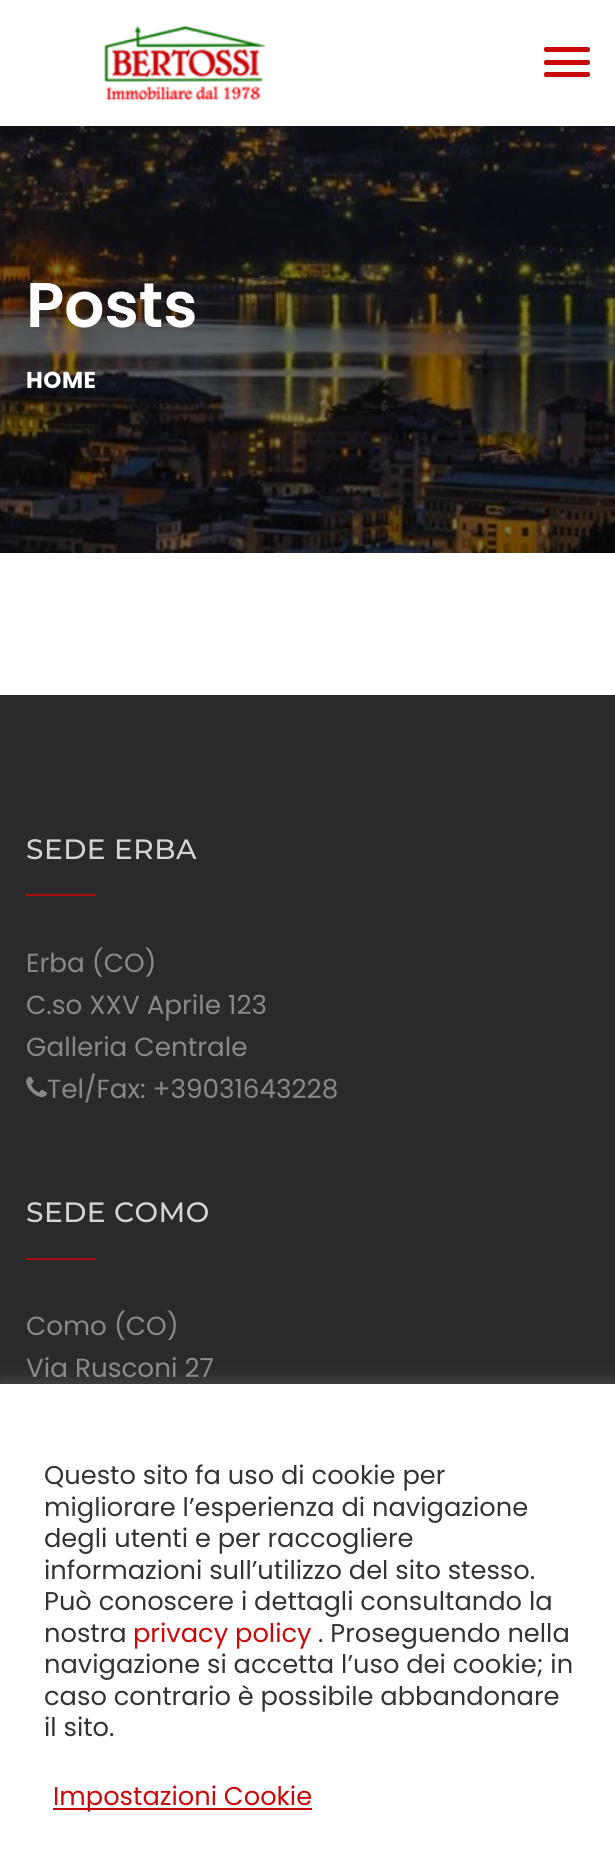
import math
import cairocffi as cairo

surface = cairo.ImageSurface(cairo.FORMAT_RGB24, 615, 1876)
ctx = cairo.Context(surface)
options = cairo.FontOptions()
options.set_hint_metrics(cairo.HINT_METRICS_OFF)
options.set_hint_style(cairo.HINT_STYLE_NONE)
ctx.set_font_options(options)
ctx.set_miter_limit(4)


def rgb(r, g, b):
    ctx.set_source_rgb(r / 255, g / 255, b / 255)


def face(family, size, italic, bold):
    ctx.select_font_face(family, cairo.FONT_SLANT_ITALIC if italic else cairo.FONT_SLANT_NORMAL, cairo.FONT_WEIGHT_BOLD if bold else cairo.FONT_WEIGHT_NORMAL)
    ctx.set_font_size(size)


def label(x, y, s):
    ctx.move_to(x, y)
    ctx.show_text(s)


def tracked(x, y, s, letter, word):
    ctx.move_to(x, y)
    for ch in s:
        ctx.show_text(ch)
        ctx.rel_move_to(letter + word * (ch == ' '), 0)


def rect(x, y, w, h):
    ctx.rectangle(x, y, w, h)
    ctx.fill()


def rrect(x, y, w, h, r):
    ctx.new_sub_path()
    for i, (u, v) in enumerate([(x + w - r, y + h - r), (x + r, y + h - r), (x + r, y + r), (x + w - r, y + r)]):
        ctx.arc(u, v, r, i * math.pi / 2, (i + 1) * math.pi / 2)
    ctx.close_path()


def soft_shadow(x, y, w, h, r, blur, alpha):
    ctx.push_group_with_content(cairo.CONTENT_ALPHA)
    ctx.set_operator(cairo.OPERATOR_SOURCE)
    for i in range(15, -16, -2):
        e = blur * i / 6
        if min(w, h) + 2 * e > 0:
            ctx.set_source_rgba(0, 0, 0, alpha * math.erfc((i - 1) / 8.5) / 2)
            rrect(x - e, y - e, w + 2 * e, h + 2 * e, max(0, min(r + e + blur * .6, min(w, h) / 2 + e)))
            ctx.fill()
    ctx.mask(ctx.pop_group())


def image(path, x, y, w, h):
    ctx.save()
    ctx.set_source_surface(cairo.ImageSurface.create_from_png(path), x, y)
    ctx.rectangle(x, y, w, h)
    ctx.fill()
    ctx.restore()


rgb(255, 255, 255)
ctx.paint()
image('image0.png', 104, 25, 162, 76)
rgb(201, 8, 8)
rrect(544, 47, 46, 5, 2)
ctx.fill()
rrect(544, 60, 46, 5, 2)
ctx.fill()
rrect(544, 72, 46, 5, 2)
ctx.fill()
image('image1.png', 0, 126, 615, 427)
face('Poppins SemiBold', 63, 0, 0)
rgb(255, 255, 255)
label(26, 327, 'Posts')
face('Poppins', 23, 0, 1)
tracked(26, 388, 'HOME', 0.5, 0)
rgb(42, 41, 43)
rect(0, 695, 615, 689)
face('Montserrat Medium', 28, 0, 0)
rgb(212, 212, 213)
tracked(26, 859, 'SEDE ERBA', 0.5, 0)
rgb(169, 15, 15)
rect(26, 894, 70, 2)
face('Poppins', 26.25, 0, 0)
rgb(137, 137, 137)
label(26, 972, 'Erba (CO)')
label(26, 1014, 'C.so XXV Aprile 123')
label(26, 1056, 'Galleria Centrale')
image('image2.png', 26, 1076, 21, 22)
label(47, 1098, 'Tel/Fax: +39031643228')
face('Montserrat Medium', 28, 0, 0)
rgb(212, 212, 213)
tracked(26, 1222, 'SEDE COMO', 0.5, 0)
rgb(169, 15, 15)
rect(26, 1258, 70, 2)
face('Poppins', 26.25, 0, 0)
rgb(137, 137, 137)
label(26, 1335, 'Como (CO)')
label(26, 1377, 'Via Rusconi 27')
rgb(172, 171, 171)
soft_shadow(0, 1383, 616, 491, 0, 9, 0.3)
rgb(255, 255, 255)
rect(0, 1384, 615, 492)
face('Poppins', 25.7, 0, 0)
rgb(51, 51, 51)
label(44, 1484, 'Questo sito fa uso di cookie per')
label(44, 1516, 'migliorare l’esperienza di navigazione')
label(44, 1547, 'degli utenti e per raccogliere')
label(44, 1579, 'informazioni sull’utilizzo del sito stesso.')
label(44, 1610, 'Può conoscere i dettagli consultando la')
label(44, 1642, 'nostra')
rgb(201, 8, 8)
label(133, 1642, 'privacy policy')
rgb(51, 51, 51)
label(318, 1642, '. Proseguendo nella')
label(44, 1673, 'navigazione si accetta l’uso dei cookie; in')
label(44, 1705, 'caso contrario è possibile abbandonare')
label(44, 1736, 'il sito.')
rgb(201, 8, 8)
rect(53, 1808, 259, 2)
label(53, 1805, 'Impostazioni Cookie')
surface.write_to_png('render.png')
